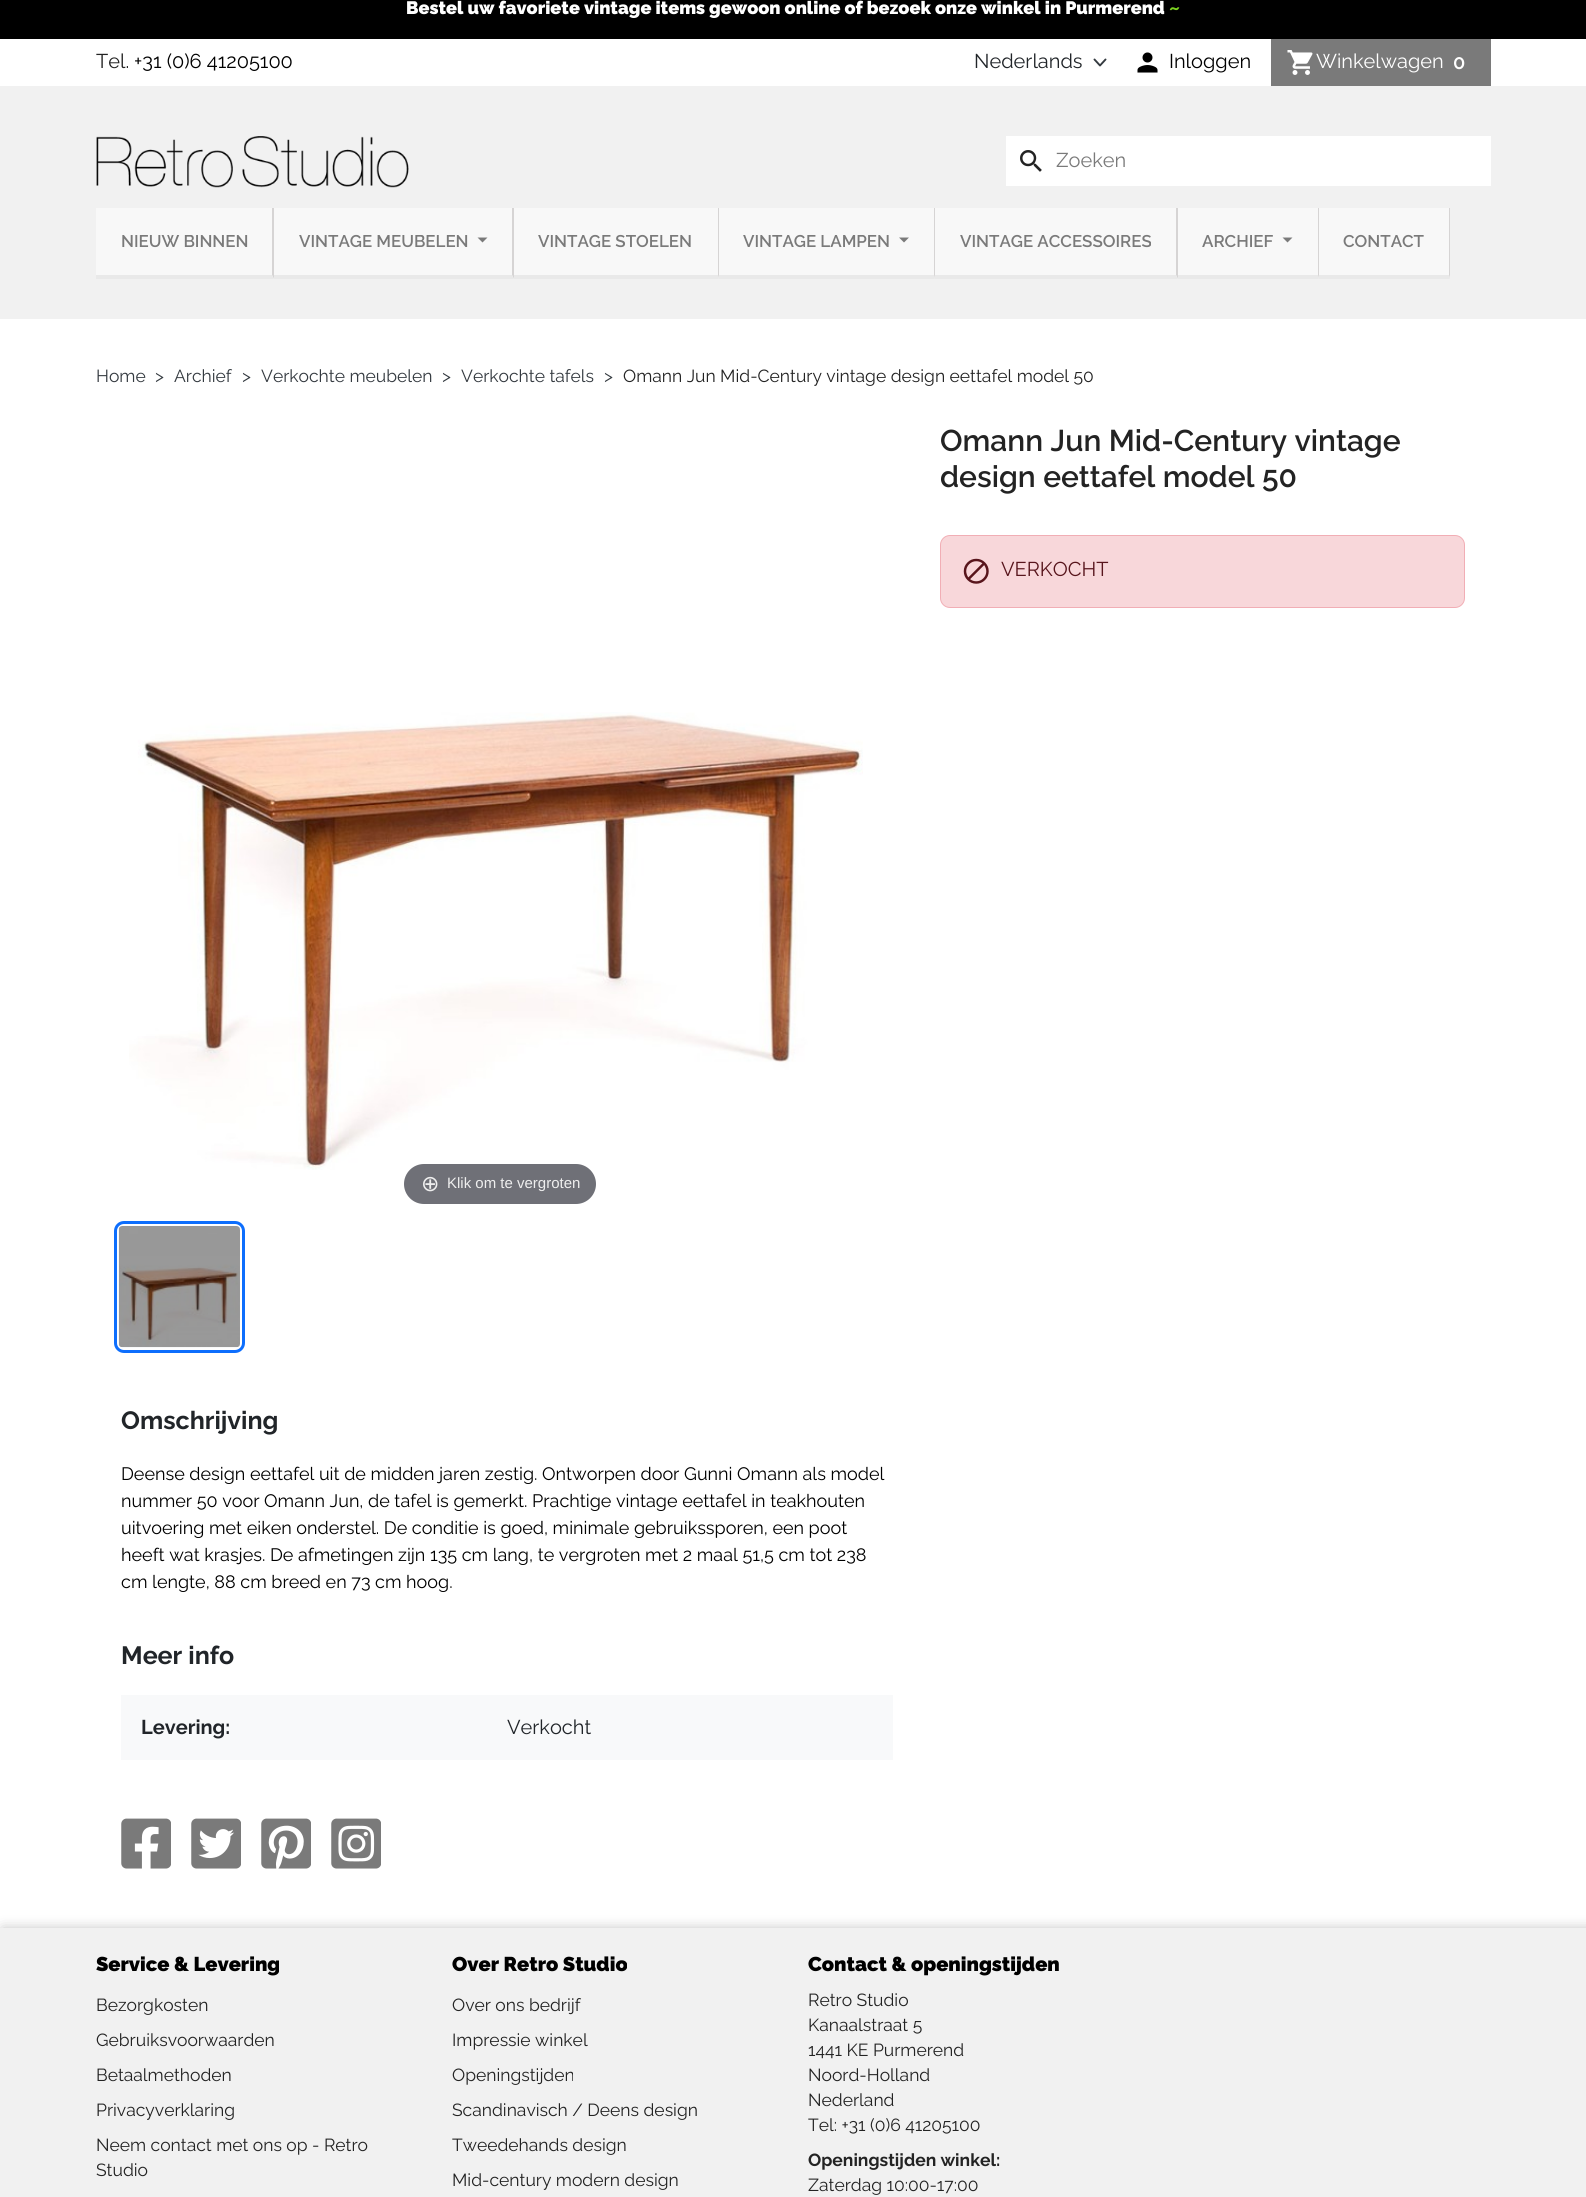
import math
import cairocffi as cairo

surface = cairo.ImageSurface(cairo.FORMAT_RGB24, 1586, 2197)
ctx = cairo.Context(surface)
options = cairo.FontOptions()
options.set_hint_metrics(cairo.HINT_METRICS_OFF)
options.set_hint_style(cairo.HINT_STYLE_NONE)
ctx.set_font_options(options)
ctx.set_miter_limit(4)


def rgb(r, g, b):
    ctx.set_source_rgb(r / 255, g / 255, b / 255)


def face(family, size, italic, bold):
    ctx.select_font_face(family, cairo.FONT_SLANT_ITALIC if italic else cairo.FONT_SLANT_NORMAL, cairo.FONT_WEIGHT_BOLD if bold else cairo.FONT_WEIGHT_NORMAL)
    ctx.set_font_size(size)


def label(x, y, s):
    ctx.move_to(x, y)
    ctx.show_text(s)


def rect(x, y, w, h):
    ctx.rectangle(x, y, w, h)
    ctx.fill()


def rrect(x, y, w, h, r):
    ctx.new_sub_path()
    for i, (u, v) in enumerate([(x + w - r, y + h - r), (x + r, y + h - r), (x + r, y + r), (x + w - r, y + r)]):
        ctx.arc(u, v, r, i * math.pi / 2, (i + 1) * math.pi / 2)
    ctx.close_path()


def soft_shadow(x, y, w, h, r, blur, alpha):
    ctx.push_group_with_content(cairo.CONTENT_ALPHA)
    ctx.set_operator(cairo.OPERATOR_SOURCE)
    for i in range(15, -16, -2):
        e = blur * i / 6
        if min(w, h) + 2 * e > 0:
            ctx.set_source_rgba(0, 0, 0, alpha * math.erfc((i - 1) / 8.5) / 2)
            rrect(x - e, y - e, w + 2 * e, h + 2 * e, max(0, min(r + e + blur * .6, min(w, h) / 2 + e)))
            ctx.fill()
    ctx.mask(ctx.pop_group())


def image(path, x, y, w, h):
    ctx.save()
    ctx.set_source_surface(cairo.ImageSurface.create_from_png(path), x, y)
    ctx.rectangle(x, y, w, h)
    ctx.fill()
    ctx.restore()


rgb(255, 255, 255)
ctx.paint()
rgb(0, 0, 0)
rect(0, 0, 1586, 39)
face('Raleway Black', 18, 0, 0)
rgb(255, 255, 255)
label(406, 14, 'Bestel uw favoriete vintage items gewoon online of bezoek onze winkel in Purmerend')
rgb(124, 211, 32)
label(1169, 14, '~')
face('Raleway', 20, 0, 0)
rgb(35, 35, 35)
label(96, 68, 'Tel.')
rgb(0, 0, 0)
label(134, 68, '+31 (0)6 41205100')
ctx.new_path()
ctx.move_to(1094.5, 59.5)
ctx.line_to(1100, 65.5)
ctx.line_to(1105.5, 59.5)
rgb(52, 58, 64)
ctx.set_line_width(1.9)
ctx.set_line_cap(cairo.LINE_CAP_ROUND)
ctx.set_line_join(cairo.LINE_JOIN_ROUND)
ctx.stroke()
rgb(33, 37, 41)
label(974, 68, 'Nederlands')
image('image0.png', 1137, 52, 21, 21)
rgb(0, 0, 0)
label(1169, 68, 'Inloggen')
rgb(122, 122, 122)
rect(1271, 39, 220, 47)
image('image1.png', 1287, 50, 26, 25)
rgb(255, 255, 255)
label(1316, 68, 'Winkelwagen')
face('Raleway SemiBold', 20, 0, 0)
label(1453, 69, '0')
rgb(241, 241, 241)
rect(0, 86, 1586, 233)
image('image2.png', 96, 136, 313, 52)
rgb(255, 255, 255)
rect(1006, 136, 485, 50)
image('image3.png', 1020, 150, 22, 22)
face('Raleway', 20, 0, 0)
rgb(122, 122, 122)
label(1056, 167, 'Zoeken')
rgb(248, 248, 248)
rect(96, 208, 1354, 71)
rgb(214, 212, 212)
ctx.new_path()
ctx.move_to(274, 208)
ctx.line_to(274, 279)
ctx.line_to(272, 275)
ctx.line_to(272, 208)
ctx.close_path()
ctx.fill()
rgb(233, 233, 233)
ctx.new_path()
ctx.move_to(274, 279)
ctx.line_to(96, 279)
ctx.line_to(96, 275)
ctx.line_to(272, 275)
ctx.close_path()
ctx.fill()
face('Raleway SemiBold', 16.9, 0, 0)
rgb(122, 122, 122)
label(121, 247, 'NIEUW BINNEN')
rgb(214, 212, 212)
ctx.new_path()
ctx.move_to(514, 208)
ctx.line_to(514, 279)
ctx.line_to(512, 275)
ctx.line_to(512, 208)
ctx.close_path()
ctx.fill()
rgb(233, 233, 233)
ctx.new_path()
ctx.move_to(514, 279)
ctx.line_to(274, 279)
ctx.line_to(274, 275)
ctx.line_to(512, 275)
ctx.close_path()
ctx.fill()
rgb(122, 122, 122)
label(299, 247, 'VINTAGE MEUBELEN')
ctx.new_path()
ctx.move_to(477.5, 237.5)
ctx.line_to(487.5, 237.5)
ctx.line_to(482.5, 242.5)
ctx.close_path()
ctx.fill()
rgb(214, 212, 212)
ctx.new_path()
ctx.move_to(719, 208)
ctx.line_to(719, 279)
ctx.line_to(718, 275)
ctx.line_to(718, 208)
ctx.close_path()
ctx.fill()
rgb(233, 233, 233)
ctx.new_path()
ctx.move_to(719, 279)
ctx.line_to(514, 279)
ctx.line_to(514, 275)
ctx.line_to(718, 275)
ctx.close_path()
ctx.fill()
rgb(122, 122, 122)
label(538, 247, 'VINTAGE STOELEN')
rgb(214, 212, 212)
ctx.new_path()
ctx.move_to(935, 208)
ctx.line_to(935, 279)
ctx.line_to(934, 275)
ctx.line_to(934, 208)
ctx.close_path()
ctx.fill()
rgb(233, 233, 233)
ctx.new_path()
ctx.move_to(935, 279)
ctx.line_to(719, 279)
ctx.line_to(719, 275)
ctx.line_to(934, 275)
ctx.close_path()
ctx.fill()
rgb(122, 122, 122)
label(743, 247, 'VINTAGE LAMPEN')
ctx.new_path()
ctx.move_to(899, 237.5)
ctx.line_to(909, 237.5)
ctx.line_to(904, 242.5)
ctx.close_path()
ctx.fill()
rgb(214, 212, 212)
ctx.new_path()
ctx.move_to(1178, 208)
ctx.line_to(1178, 279)
ctx.line_to(1176, 275)
ctx.line_to(1176, 208)
ctx.close_path()
ctx.fill()
rgb(233, 233, 233)
ctx.new_path()
ctx.move_to(1178, 279)
ctx.line_to(935, 279)
ctx.line_to(935, 275)
ctx.line_to(1176, 275)
ctx.close_path()
ctx.fill()
rgb(122, 122, 122)
label(960, 247, 'VINTAGE ACCESSOIRES')
rgb(214, 212, 212)
ctx.new_path()
ctx.move_to(1319, 208)
ctx.line_to(1319, 279)
ctx.line_to(1318, 275)
ctx.line_to(1318, 208)
ctx.close_path()
ctx.fill()
rgb(233, 233, 233)
ctx.new_path()
ctx.move_to(1319, 279)
ctx.line_to(1178, 279)
ctx.line_to(1178, 275)
ctx.line_to(1318, 275)
ctx.close_path()
ctx.fill()
rgb(122, 122, 122)
label(1202, 247, 'ARCHIEF')
ctx.new_path()
ctx.move_to(1282.5, 237.5)
ctx.line_to(1292.5, 237.5)
ctx.line_to(1287.5, 242.5)
ctx.close_path()
ctx.fill()
rgb(214, 212, 212)
ctx.new_path()
ctx.move_to(1450, 208)
ctx.line_to(1450, 279)
ctx.line_to(1449, 275)
ctx.line_to(1449, 208)
ctx.close_path()
ctx.fill()
rgb(233, 233, 233)
ctx.new_path()
ctx.move_to(1450, 279)
ctx.line_to(1319, 279)
ctx.line_to(1319, 275)
ctx.line_to(1449, 275)
ctx.close_path()
ctx.fill()
rgb(122, 122, 122)
label(1343, 247, 'CONTACT')
face('Raleway', 17.5, 0, 0)
rgb(52, 58, 64)
label(96, 382, 'Home')
label(155, 382, '>')
label(174, 382, 'Archief')
label(242, 382, '>')
label(261, 382, 'Verkochte meubelen')
label(442, 382, '>')
label(461, 382, 'Verkochte tafels')
label(604, 382, '>')
rgb(35, 35, 35)
label(623, 382, 'Omann Jun Mid-Century vintage design eettafel model 50')
face('Raleway SemiBold', 30, 0, 0)
label(940, 451, 'Omann Jun Mid-Century vintage')
label(940, 487, 'design eettafel model 50')
rgb(248, 215, 218)
rrect(940.5, 535.5, 524, 72, 9.5)
ctx.fill_preserve()
rgb(241, 174, 181)
ctx.set_line_width(1)
ctx.set_line_cap(cairo.LINE_CAP_BUTT)
ctx.set_line_join(cairo.LINE_JOIN_MITER)
ctx.stroke()
image('image4.png', 963, 558, 26, 26)
face('Raleway', 20, 0, 0)
rgb(88, 21, 28)
label(1001, 576, 'VERKOCHT')
image('image5.png', 129, 712, 734, 458)
rgb(111, 112, 119)
rrect(404, 1164, 192, 40, 20)
ctx.fill()
face('DejaVu Sans', 22, 0, 0)
rgb(238, 238, 238)
label(421, 1191, '⊕')
face('Liberation Sans', 15, 0, 0)
label(447, 1188, 'Klik om te vergroten')
rrect(115.5, 1222.5, 128, 129, 8.5)
rgb(13, 110, 253)
ctx.set_line_width(3)
ctx.stroke()
image('image6.png', 118, 1226, 122, 122)
face('Raleway', 25, 0, 1)
rgb(33, 37, 41)
label(121, 1429, 'Omschrijving')
face('Raleway', 18, 0, 0)
rgb(0, 0, 0)
label(121, 1480, 'Deense design eettafel uit de midden jaren zestig. Ontworpen door Gunni Omann als model')
label(121, 1507, 'nummer 50 voor Omann Jun, de tafel is gemerkt. Prachtige vintage eettafel in teakhouten')
label(121, 1534, 'uitvoering met eiken onderstel. De conditie is goed, minimale gebruikssporen, een poot')
label(121, 1561, 'heeft wat krasjes. De afmetingen zijn 135 cm lang, te vergroten met 2 maal 51,5 cm tot 238')
label(121, 1588, 'cm lengte, 88 cm breed en 73 cm hoog.')
face('Raleway', 25, 0, 1)
rgb(33, 37, 41)
label(121, 1664, 'Meer info')
rgb(248, 249, 250)
rect(121, 1695, 772, 65)
face('Raleway', 20, 0, 1)
rgb(33, 37, 41)
label(141, 1734, 'Levering:')
face('Raleway', 20, 0, 0)
label(507, 1734, 'Verkocht')
image('image7.png', 121, 1818, 50, 51)
image('image8.png', 191, 1818, 50, 51)
image('image9.png', 261, 1818, 50, 51)
image('image10.png', 331, 1818, 50, 51)
rgb(0, 0, 0)
soft_shadow(3, 1930, 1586, 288, 0, 7, 0.3)
rgb(241, 241, 241)
rect(0, 1928, 1586, 269)
face('Raleway Black', 20, 0, 0)
rgb(0, 0, 0)
label(96, 1971, 'Service & Levering')
face('Raleway', 17.5, 0, 0)
rgb(35, 35, 35)
label(96, 2011, 'Bezorgkosten')
label(96, 2046, 'Gebruiksvoorwaarden')
label(96, 2081, 'Betaalmethoden')
label(96, 2116, 'Privacyverklaring')
label(96, 2151, 'Neem contact met ons op - Retro')
label(96, 2176, 'Studio')
face('Raleway Black', 20, 0, 0)
rgb(0, 0, 0)
label(452, 1971, 'Over Retro Studio')
face('Raleway', 17.5, 0, 0)
rgb(35, 35, 35)
label(452, 2011, 'Over ons bedrijf')
label(452, 2046, 'Impressie winkel')
label(452, 2081, 'Openingstijden')
label(452, 2116, 'Scandinavisch / Deens design')
label(452, 2151, 'Tweedehands design')
label(452, 2186, 'Mid-century modern design')
face('Raleway Black', 20, 0, 0)
rgb(0, 0, 0)
label(808, 1971, 'Contact & openingstijden')
face('Raleway', 17.5, 0, 0)
rgb(35, 35, 35)
label(808, 2006, 'Retro Studio')
label(808, 2031, 'Kanaalstraat 5')
label(808, 2056, '1441 KE Purmerend')
label(808, 2081, 'Noord-Holland')
label(808, 2106, 'Nederland')
label(808, 2131, 'Tel: +31 (0)6 41205100')
face('Raleway', 17.5, 0, 1)
label(808, 2166, 'Openingstijden winkel:')
face('Raleway', 17.5, 0, 0)
label(808, 2191, 'Zaterdag 10:00-17:00')
surface.write_to_png('render.png')
